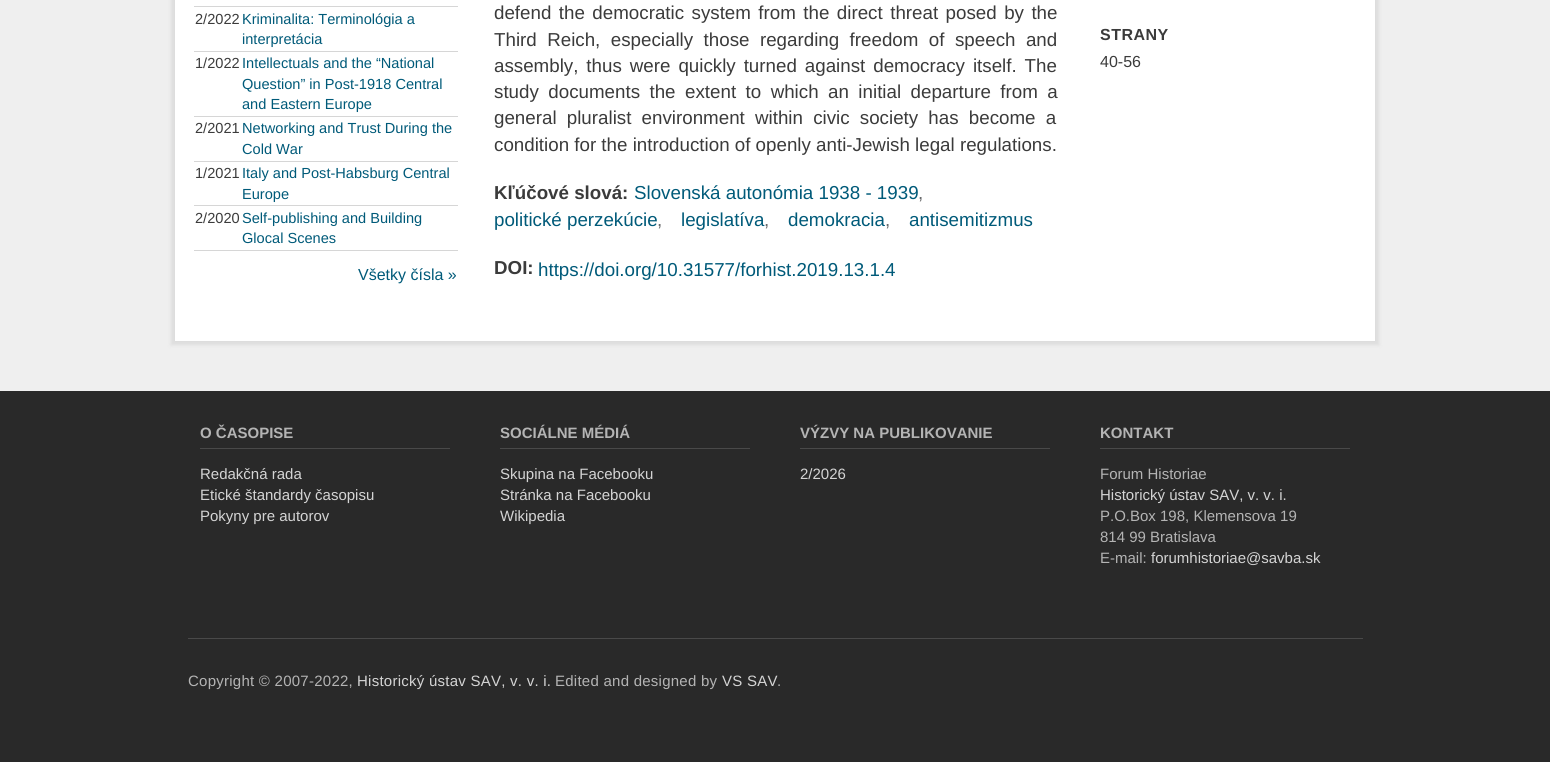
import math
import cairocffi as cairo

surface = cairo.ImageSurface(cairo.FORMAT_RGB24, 1550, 762)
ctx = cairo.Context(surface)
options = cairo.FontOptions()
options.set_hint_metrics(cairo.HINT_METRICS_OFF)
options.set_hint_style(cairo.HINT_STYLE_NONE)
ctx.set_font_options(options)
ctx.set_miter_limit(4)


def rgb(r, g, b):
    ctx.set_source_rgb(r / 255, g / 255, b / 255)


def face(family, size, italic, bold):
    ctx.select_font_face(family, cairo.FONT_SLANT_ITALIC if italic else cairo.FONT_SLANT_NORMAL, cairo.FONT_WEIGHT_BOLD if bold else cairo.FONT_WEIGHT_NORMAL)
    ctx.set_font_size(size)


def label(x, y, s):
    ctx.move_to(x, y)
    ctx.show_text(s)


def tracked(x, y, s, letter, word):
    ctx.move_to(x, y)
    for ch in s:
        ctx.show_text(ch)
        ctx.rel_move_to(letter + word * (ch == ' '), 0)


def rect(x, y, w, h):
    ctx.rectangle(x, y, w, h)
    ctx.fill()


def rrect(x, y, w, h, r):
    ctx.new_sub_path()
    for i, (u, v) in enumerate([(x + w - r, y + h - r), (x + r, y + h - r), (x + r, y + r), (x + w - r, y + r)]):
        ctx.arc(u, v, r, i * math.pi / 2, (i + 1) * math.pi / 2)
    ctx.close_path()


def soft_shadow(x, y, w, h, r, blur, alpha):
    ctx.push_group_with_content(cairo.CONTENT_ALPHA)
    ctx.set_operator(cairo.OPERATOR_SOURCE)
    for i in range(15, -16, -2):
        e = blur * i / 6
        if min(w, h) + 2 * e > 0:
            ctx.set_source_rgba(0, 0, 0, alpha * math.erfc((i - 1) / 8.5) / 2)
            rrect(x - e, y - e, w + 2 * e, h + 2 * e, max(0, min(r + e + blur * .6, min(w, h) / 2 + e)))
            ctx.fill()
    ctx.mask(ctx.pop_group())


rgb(239, 239, 239)
ctx.paint()
rgb(221, 221, 221)
soft_shadow(171, -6, 1208, 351, 0, 2, 1)
rgb(255, 255, 255)
rect(175, 0, 1200, 341)
rgb(214, 214, 214)
rect(194, 6, 264, 1)
rect(194, 51, 264, 1)
face('Liberation Sans', 14.6, 0, 0)
rgb(59, 59, 59)
label(195, 24, '2/2022')
rgb(0, 90, 121)
label(242, 24, 'Kriminalita: Terminológia a')
label(242, 44, 'interpretácia')
rgb(214, 214, 214)
rect(194, 116, 264, 1)
rgb(59, 59, 59)
label(195, 68, '1/2022')
rgb(0, 90, 121)
label(242, 68, 'Intellectuals and the “National')
label(242, 89, 'Question” in Post-1918 Central')
label(242, 109, 'and Eastern Europe')
rgb(214, 214, 214)
rect(194, 161, 264, 1)
rgb(59, 59, 59)
label(195, 133, '2/2021')
rgb(0, 90, 121)
label(242, 133, 'Networking and Trust During the')
label(242, 154, 'Cold War')
rgb(214, 214, 214)
rect(194, 205, 264, 1)
rgb(59, 59, 59)
label(195, 178, '1/2021')
rgb(0, 90, 121)
label(242, 178, 'Italy and Post-Habsburg Central')
label(242, 199, 'Europe')
rgb(214, 214, 214)
rect(194, 250, 264, 1)
rgb(59, 59, 59)
label(195, 223, '2/2020')
rgb(0, 90, 121)
label(242, 223, 'Self-publishing and Building')
label(242, 243, 'Glocal Scenes')
face('Liberation Sans', 16, 0, 0)
label(358, 280, 'Všetky čísla »')
face('Liberation Sans', 18.75, 0, 0)
rgb(59, 59, 59)
tracked(494, 19, 'defend the democratic system from the direct threat posed by the', 0, 2.25)
tracked(494, 46, 'Third Reich, especially those regarding freedom of speech and', 0, 5.25)
tracked(494, 72, 'assembly, thus were quickly turned against democracy itself. The', 0, 2.75)
tracked(494, 98, 'study documents the extent to which an initial departure from a', 0, 4.25)
tracked(494, 124, 'general pluralist environment within civic society has become a', 0, 5)
label(494, 151, 'condition for the introduction of openly anti-Jewish legal regulations.')
rgb(0, 90, 121)
label(634, 199, 'Slovenská autonómia 1938 - 1939')
rgb(104, 105, 107)
label(918, 199, ',')
rgb(0, 90, 121)
label(494, 226, 'politické perzekúcie')
rgb(104, 105, 107)
label(657, 226, ',')
rgb(0, 90, 121)
label(681, 226, 'legislatíva')
rgb(104, 105, 107)
label(764, 226, ',')
rgb(0, 90, 121)
label(788, 226, 'demokracia')
rgb(104, 105, 107)
label(885, 226, ',')
rgb(0, 90, 121)
label(909, 226, 'antisemitizmus')
face('Liberation Sans', 18.75, 0, 1)
rgb(59, 59, 59)
label(494, 199, 'Kľúčové slová:')
label(494, 274, 'DOI:')
face('Liberation Sans', 18.75, 0, 0)
rgb(0, 90, 121)
label(538, 276, 'https://doi.org/10.31577/forhist.2019.13.1.4')
face('Liberation Sans', 16, 0, 1)
rgb(59, 59, 59)
tracked(1100, 40, 'STRANY', 0.5, 0)
face('Liberation Sans', 16, 0, 0)
label(1100, 67, '40-56')
rgb(41, 41, 41)
rect(0, 391, 1550, 371)
rgb(73, 73, 73)
rect(200, 448, 250, 1)
face('Liberation Sans', 15, 0, 1)
rgb(180, 180, 180)
label(200, 438, 'O ČASOPISE')
face('Liberation Sans', 15, 0, 0)
rgb(212, 212, 212)
label(200, 479, 'Redakčná rada')
label(200, 500, 'Etické štandardy časopisu')
label(200, 521, 'Pokyny pre autorov')
rgb(73, 73, 73)
rect(500, 448, 250, 1)
face('Liberation Sans', 15, 0, 1)
rgb(180, 180, 180)
label(500, 438, 'SOCIÁLNE MÉDIÁ')
face('Liberation Sans', 15, 0, 0)
rgb(212, 212, 212)
label(500, 479, 'Skupina na Facebooku')
label(500, 500, 'Stránka na Facebooku')
label(500, 521, 'Wikipedia')
rgb(73, 73, 73)
rect(800, 448, 250, 1)
face('Liberation Sans', 15, 0, 1)
rgb(180, 180, 180)
label(800, 438, 'VÝZVY NA PUBLIKOVANIE')
face('Liberation Sans', 15, 0, 0)
rgb(212, 212, 212)
label(800, 479, '2/2026')
rgb(73, 73, 73)
rect(1100, 448, 250, 1)
face('Liberation Sans', 15, 0, 1)
rgb(180, 180, 180)
label(1100, 438, 'KONTAKT')
face('Liberation Sans', 15, 0, 0)
label(1100, 479, 'Forum Historiae')
rgb(212, 212, 212)
label(1100, 500, 'Historický ústav SAV, v. v. i.')
rgb(180, 180, 180)
label(1100, 521, 'P.O.Box 198, Klemensova 19')
label(1100, 542, '814 99 Bratislava')
label(1100, 563, 'E-mail:')
rgb(212, 212, 212)
label(1151, 563, 'forumhistoriae@savba.sk')
rgb(73, 73, 73)
rect(188, 638, 1175, 1)
rgb(180, 180, 180)
tracked(188, 686, 'Copyright © 2007-2022,', 0.25, 0)
rgb(212, 212, 212)
tracked(357, 686, 'Historický ústav SAV, v. v. i.', 0.25, 0)
rgb(180, 180, 180)
tracked(555, 686, 'Edited and designed by', 0.25, 0)
rgb(212, 212, 212)
tracked(722, 686, 'VS SAV', 0.25, 0)
rgb(180, 180, 180)
tracked(777, 686, '.', 0.25, 0)
surface.write_to_png('render.png')
